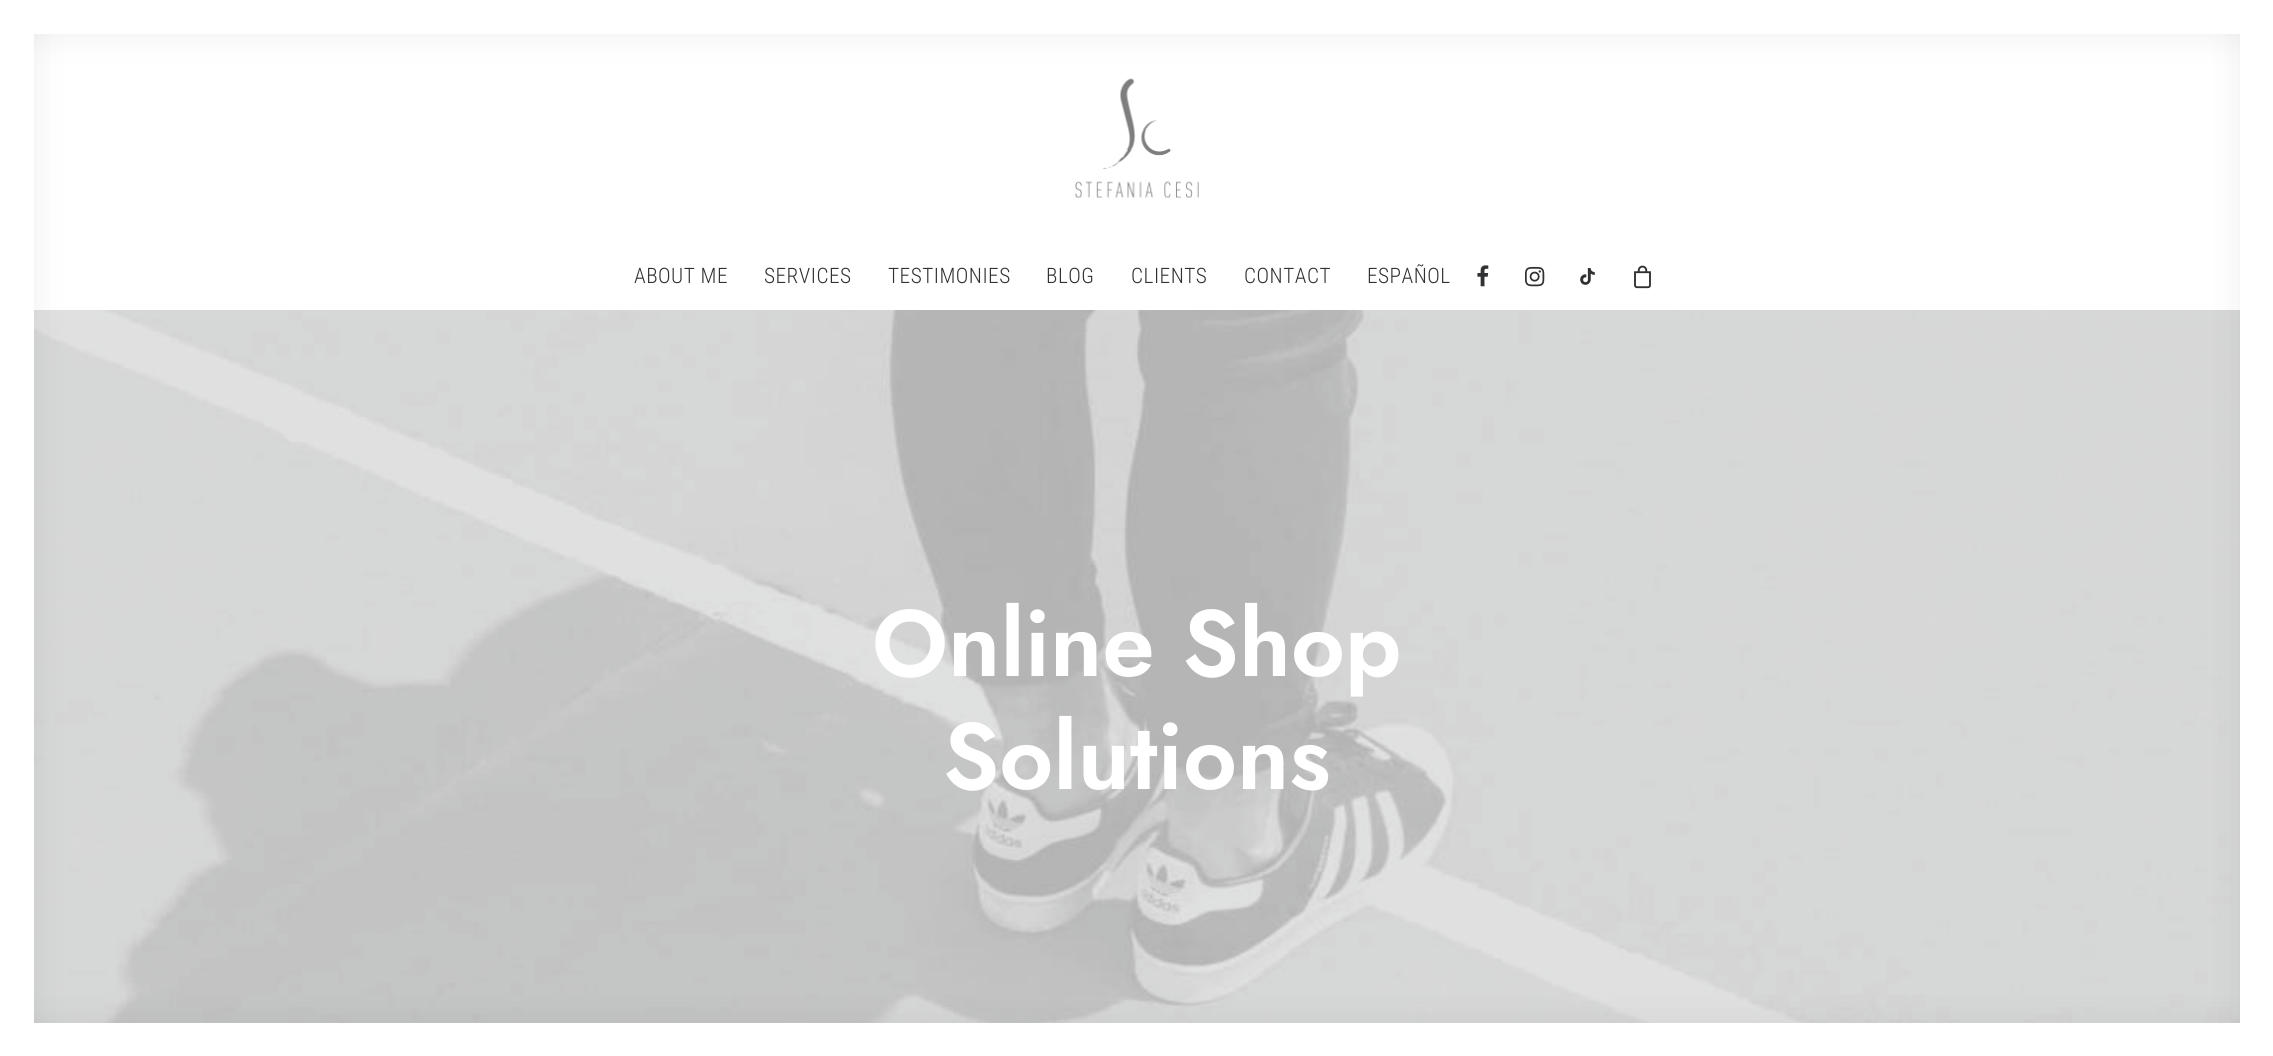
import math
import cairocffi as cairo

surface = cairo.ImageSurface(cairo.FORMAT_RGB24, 2273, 1056)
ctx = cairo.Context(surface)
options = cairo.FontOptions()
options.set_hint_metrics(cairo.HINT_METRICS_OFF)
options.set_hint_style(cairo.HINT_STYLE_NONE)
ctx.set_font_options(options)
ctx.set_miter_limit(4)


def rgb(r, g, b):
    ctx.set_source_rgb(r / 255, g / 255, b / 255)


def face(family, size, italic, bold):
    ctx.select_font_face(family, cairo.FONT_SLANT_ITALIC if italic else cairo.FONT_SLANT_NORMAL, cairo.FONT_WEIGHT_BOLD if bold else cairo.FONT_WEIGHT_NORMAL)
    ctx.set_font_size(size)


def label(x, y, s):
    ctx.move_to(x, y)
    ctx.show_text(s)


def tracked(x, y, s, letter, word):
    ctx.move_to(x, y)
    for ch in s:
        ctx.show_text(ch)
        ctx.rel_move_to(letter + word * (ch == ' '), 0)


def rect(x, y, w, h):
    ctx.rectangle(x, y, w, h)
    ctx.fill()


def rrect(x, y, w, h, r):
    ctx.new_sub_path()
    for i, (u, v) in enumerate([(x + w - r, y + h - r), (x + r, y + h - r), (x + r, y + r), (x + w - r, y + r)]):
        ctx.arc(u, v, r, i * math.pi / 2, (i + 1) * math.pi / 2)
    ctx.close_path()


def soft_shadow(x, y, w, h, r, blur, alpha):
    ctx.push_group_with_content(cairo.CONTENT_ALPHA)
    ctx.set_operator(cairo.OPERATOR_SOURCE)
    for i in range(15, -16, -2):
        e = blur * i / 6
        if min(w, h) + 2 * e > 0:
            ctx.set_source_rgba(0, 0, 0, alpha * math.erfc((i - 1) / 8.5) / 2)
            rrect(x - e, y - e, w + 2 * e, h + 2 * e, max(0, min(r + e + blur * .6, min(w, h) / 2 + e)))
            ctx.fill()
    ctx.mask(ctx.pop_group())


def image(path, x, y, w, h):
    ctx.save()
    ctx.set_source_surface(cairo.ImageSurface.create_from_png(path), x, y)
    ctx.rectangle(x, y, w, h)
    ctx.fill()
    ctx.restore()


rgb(255, 255, 255)
ctx.paint()
image('image0.png', 1075, 78, 124, 120)
rgb(0, 0, 0)
soft_shadow(0, 0, 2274, 34, 0, 19, 0.07)
image('image5.png', 34, 310, 2206, 713)
soft_shadow(0, 0, 34, 1056, 0, 19, 0.07)
soft_shadow(0, 1023, 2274, 33, 0, 19, 0.07)
rgb(255, 255, 255)
rect(0, 0, 34, 1056)
rgb(0, 0, 0)
soft_shadow(2240, 0, 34, 1056, 0, 19, 0.07)
rgb(255, 255, 255)
rect(34, 0, 2206, 34)
rect(2240, 0, 33, 1023)
rect(34, 1023, 2239, 33)
face('Roboto Condensed Light', 21.25, 0, 0)
rgb(48, 49, 51)
tracked(634, 283, 'ABOUT ME', 0.5, 0)
tracked(764, 283, 'SERVICES', 0.5, 0)
tracked(888, 283, 'TESTIMONIES', 0.5, 0)
tracked(1046, 283, 'BLOG', 0.5, 0)
tracked(1131, 283, 'CLIENTS', 0.5, 0)
tracked(1244, 283, 'CONTACT', 0.5, 0)
tracked(1367, 283, 'ESPAÑOL', 0.5, 0)
image('image1.png', 1477, 265, 12, 22)
image('image2.png', 1525, 266, 20, 21)
image('image3.png', 1580, 268, 15, 17)
image('image4.png', 1634, 265, 17, 24)
face('Jost SemiBold', 93.75, 0, 0)
rgb(255, 255, 255)
label(872, 676, 'Online Shop')
label(943, 789, 'Solutions')
surface.write_to_png('render.png')
